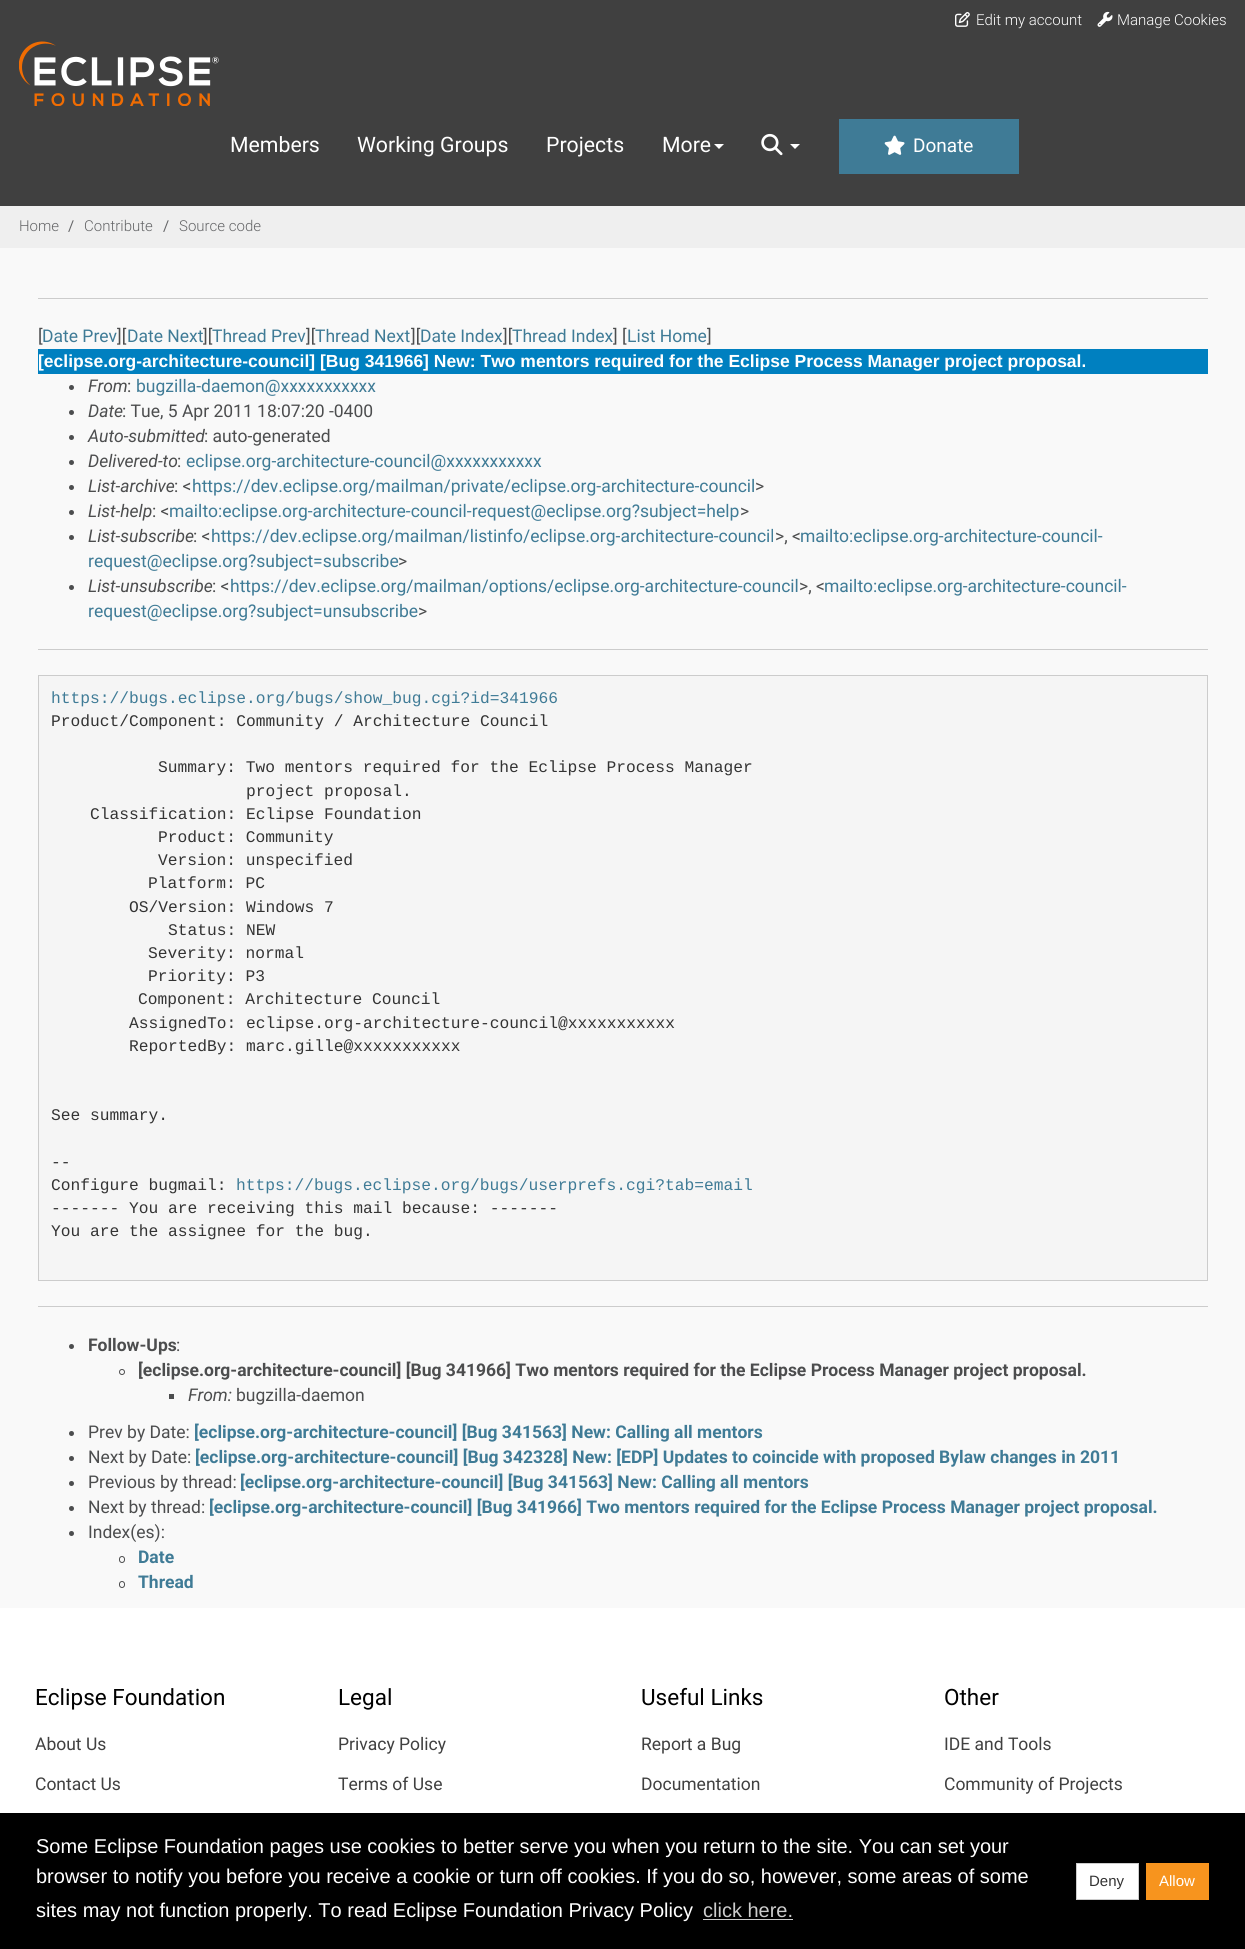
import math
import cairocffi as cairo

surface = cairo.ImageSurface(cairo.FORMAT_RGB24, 1245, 1949)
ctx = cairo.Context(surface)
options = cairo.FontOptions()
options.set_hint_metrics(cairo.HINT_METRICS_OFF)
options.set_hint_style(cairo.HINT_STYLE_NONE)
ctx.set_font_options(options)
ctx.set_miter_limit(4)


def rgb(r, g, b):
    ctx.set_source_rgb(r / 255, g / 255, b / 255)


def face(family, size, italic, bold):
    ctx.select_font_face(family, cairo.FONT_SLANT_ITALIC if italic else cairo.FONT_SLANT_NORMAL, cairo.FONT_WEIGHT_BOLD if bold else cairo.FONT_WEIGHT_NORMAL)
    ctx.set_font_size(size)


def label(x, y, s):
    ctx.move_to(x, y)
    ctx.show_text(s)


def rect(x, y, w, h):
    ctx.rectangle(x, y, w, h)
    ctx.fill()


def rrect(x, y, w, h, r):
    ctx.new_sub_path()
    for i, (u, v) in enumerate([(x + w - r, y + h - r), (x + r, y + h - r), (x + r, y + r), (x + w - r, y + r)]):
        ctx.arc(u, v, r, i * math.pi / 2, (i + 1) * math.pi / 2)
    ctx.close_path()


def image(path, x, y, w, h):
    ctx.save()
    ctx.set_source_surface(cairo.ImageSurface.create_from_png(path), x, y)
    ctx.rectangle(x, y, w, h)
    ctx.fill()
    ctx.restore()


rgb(249, 249, 249)
ctx.paint()
rgb(64, 64, 64)
rect(0, 0, 1245, 206)
image('image0.png', 955, 12, 15, 15)
face('Roboto Light', 15, 0, 0)
rgb(255, 255, 255)
label(976, 25, 'Edit my account')
image('image1.png', 1097, 11, 16, 16)
label(1117, 25, 'Manage Cookies')
image('image2.png', 19, 41, 200, 65)
face('Roboto', 21.25, 0, 0)
label(230, 152, 'Members')
label(357, 152, 'Working Groups')
label(546, 152, 'Projects')
label(662, 152, 'More')
ctx.new_path()
ctx.move_to(714, 144)
ctx.line_to(724, 144)
ctx.line_to(719, 149)
ctx.close_path()
ctx.fill()
image('image3.png', 761, 133, 22, 23)
ctx.new_path()
ctx.move_to(790, 144)
ctx.line_to(800, 144)
ctx.line_to(795, 149)
ctx.close_path()
ctx.fill()
rgb(63, 123, 150)
rect(839, 119, 180, 55)
image('image4.png', 884, 135, 21, 20)
face('Roboto', 19, 0, 0)
rgb(255, 255, 255)
label(913, 152, 'Donate')
rgb(239, 239, 239)
rect(0, 206, 1245, 42)
face('Roboto Light', 15, 0, 0)
rgb(101, 102, 104)
label(19, 231, 'Home')
face('Roboto', 15, 0, 0)
label(68, 231, '/')
face('Roboto Light', 15, 0, 0)
label(84, 231, 'Contribute')
face('Roboto', 15, 0, 0)
label(163, 231, '/')
face('Roboto Light', 15, 0, 0)
label(179, 231, 'Source code')
rgb(204, 204, 204)
rect(38, 298, 1170, 1)
face('Roboto', 17.5, 0, 0)
rgb(76, 77, 78)
label(38, 342, '[')
rgb(63, 123, 150)
label(42, 342, 'Date Prev')
rgb(76, 77, 78)
label(117, 342, '][')
rgb(63, 123, 150)
label(127, 342, 'Date Next')
rgb(76, 77, 78)
label(203, 342, '][')
rgb(63, 123, 150)
label(212, 342, 'Thread Prev')
rgb(76, 77, 78)
label(306, 342, '][')
rgb(63, 123, 150)
label(315, 342, 'Thread Next')
rgb(76, 77, 78)
label(411, 342, '][')
rgb(63, 123, 150)
label(420, 342, 'Date Index')
rgb(76, 77, 78)
label(503, 342, '][')
rgb(63, 123, 150)
label(512, 342, 'Thread Index')
rgb(76, 77, 78)
label(613, 342, '] [')
rgb(63, 123, 150)
label(627, 342, 'List Home')
rgb(76, 77, 78)
label(707, 342, ']')
rgb(0, 128, 192)
rect(38, 349, 1170, 25)
face('Liberation Sans', 17.5, 0, 1)
rgb(255, 255, 255)
label(38, 367, '[eclipse.org-architecture-council] [Bug 341966] New: Two mentors required for the Eclipse Process Manager project proposal.')
rgb(76, 77, 78)
ctx.new_path()
ctx.arc(71.5, 387.5, 2.5, 0, 2 * math.pi)
ctx.fill()
face('Roboto', 17.5, 1, 0)
label(88, 392, 'From')
face('Roboto', 17.5, 0, 0)
label(127, 392, ':')
rgb(63, 123, 150)
label(136, 392, 'bugzilla-daemon@xxxxxxxxxxx')
rgb(76, 77, 78)
ctx.new_path()
ctx.arc(71.5, 412.5, 2.5, 0, 2 * math.pi)
ctx.fill()
face('Roboto', 17.5, 1, 0)
label(88, 417, 'Date')
face('Roboto', 17.5, 0, 0)
label(122, 417, ': Tue, 5 Apr 2011 18:07:20 -0400')
ctx.new_path()
ctx.arc(71.5, 437.5, 2.5, 0, 2 * math.pi)
ctx.fill()
face('Roboto', 17.5, 1, 0)
label(88, 442, 'Auto-submitted')
face('Roboto', 17.5, 0, 0)
label(204, 442, ': auto-generated')
ctx.new_path()
ctx.arc(71.5, 462.5, 2.5, 0, 2 * math.pi)
ctx.fill()
face('Roboto', 17.5, 1, 0)
label(88, 467, 'Delivered-to')
face('Roboto', 17.5, 0, 0)
label(177, 467, ':')
rgb(63, 123, 150)
label(186, 467, 'eclipse.org-architecture-council@xxxxxxxxxxx')
rgb(76, 77, 78)
ctx.new_path()
ctx.arc(71.5, 487.5, 2.5, 0, 2 * math.pi)
ctx.fill()
face('Roboto', 17.5, 1, 0)
label(88, 492, 'List-archive')
face('Roboto', 17.5, 0, 0)
label(174, 492, ': <')
rgb(63, 123, 150)
label(192, 492, 'https://dev.eclipse.org/mailman/private/eclipse.org-architecture-council')
rgb(76, 77, 78)
label(755, 492, '>')
ctx.new_path()
ctx.arc(71.5, 512.5, 2.5, 0, 2 * math.pi)
ctx.fill()
face('Roboto', 17.5, 1, 0)
label(88, 517, 'List-help')
face('Roboto', 17.5, 0, 0)
label(152, 517, ': <')
rgb(63, 123, 150)
label(169, 517, 'mailto:eclipse.org-architecture-council-request@eclipse.org?subject=help')
rgb(76, 77, 78)
label(740, 517, '>')
ctx.new_path()
ctx.arc(71.5, 537.5, 2.5, 0, 2 * math.pi)
ctx.fill()
face('Roboto', 17.5, 1, 0)
label(88, 542, 'List-subscribe')
face('Roboto', 17.5, 0, 0)
label(193, 542, ': <')
rgb(63, 123, 150)
label(211, 542, 'https://dev.eclipse.org/mailman/listinfo/eclipse.org-architecture-council')
rgb(76, 77, 78)
label(775, 542, '>, <')
rgb(63, 123, 150)
label(800, 542, 'mailto:eclipse.org-architecture-council-')
label(88, 567, 'request@eclipse.org?subject=subscribe')
rgb(76, 77, 78)
label(398, 567, '>')
ctx.new_path()
ctx.arc(71.5, 587.5, 2.5, 0, 2 * math.pi)
ctx.fill()
face('Roboto', 17.5, 1, 0)
label(88, 592, 'List-unsubscribe')
face('Roboto', 17.5, 0, 0)
label(212, 592, ': <')
rgb(63, 123, 150)
label(230, 592, 'https://dev.eclipse.org/mailman/options/eclipse.org-architecture-council')
rgb(76, 77, 78)
label(799, 592, '>, <')
rgb(63, 123, 150)
label(824, 592, 'mailto:eclipse.org-architecture-council-')
label(88, 617, 'request@eclipse.org?subject=unsubscribe')
rgb(76, 77, 78)
label(418, 617, '>')
rgb(204, 204, 204)
rect(38, 649, 1170, 1)
rgb(245, 245, 245)
ctx.rectangle(38.5, 675.5, 1169, 605)
ctx.fill_preserve()
rgb(204, 204, 204)
ctx.set_line_width(1)
ctx.stroke()
face('Liberation Mono', 16.25, 0, 0)
rgb(63, 123, 150)
label(51, 703, 'https://bugs.eclipse.org/bugs/show_bug.cgi?id=341966')
rgb(51, 51, 51)
label(51, 726, 'Product/Component: Community / Architecture Council')
label(158, 772, 'Summary: Two mentors required for the Eclipse Process Manager')
label(246, 796, 'project proposal.')
label(90, 819, 'Classification: Eclipse Foundation')
label(158, 842, 'Product: Community')
label(158, 865, 'Version: unspecified')
label(148, 888, 'Platform: PC')
label(129, 912, 'OS/Version: Windows 7')
label(168, 935, 'Status: NEW')
label(148, 958, 'Severity: normal')
label(148, 981, 'Priority: P3')
label(138, 1004, 'Component: Architecture Council')
label(129, 1028, 'AssignedTo: eclipse.org-architecture-council@xxxxxxxxxxx')
label(129, 1051, 'ReportedBy: marc.gille@xxxxxxxxxxx')
label(51, 1120, 'See summary.')
label(51, 1167, '--')
label(51, 1190, 'Configure bugmail:')
rgb(63, 123, 150)
label(236, 1190, 'https://bugs.eclipse.org/bugs/userprefs.cgi?tab=email')
rgb(51, 51, 51)
label(51, 1213, '------- You are receiving this mail because: -------')
label(51, 1236, 'You are the assignee for the bug.')
rgb(204, 204, 204)
rect(38, 1306, 1170, 1)
rgb(76, 77, 78)
ctx.new_path()
ctx.arc(71.5, 1346.5, 2.5, 0, 2 * math.pi)
ctx.fill()
face('Roboto', 17.5, 0, 1)
label(88, 1351, 'Follow-Ups')
face('Roboto', 17.5, 0, 0)
label(176, 1351, ':')
ctx.new_path()
ctx.arc(122, 1372, 2.5, 0, 2 * math.pi)
ctx.stroke()
face('Roboto', 17.5, 0, 1)
label(138, 1376, '[eclipse.org-architecture-council] [Bug 341966] Two mentors required for the Eclipse Process Manager project proposal.')
rect(169, 1394, 5, 5)
face('Roboto', 17.5, 1, 0)
label(188, 1401, 'From:')
face('Roboto', 17.5, 0, 0)
label(236, 1401, 'bugzilla-daemon')
ctx.new_path()
ctx.arc(71.5, 1433.5, 2.5, 0, 2 * math.pi)
ctx.fill()
label(88, 1438, 'Prev by Date:')
face('Roboto', 17.5, 0, 1)
rgb(63, 123, 150)
label(194, 1438, '[eclipse.org-architecture-council] [Bug 341563] New: Calling all mentors')
rgb(76, 77, 78)
ctx.new_path()
ctx.arc(71.5, 1458.5, 2.5, 0, 2 * math.pi)
ctx.fill()
face('Roboto', 17.5, 0, 0)
label(88, 1463, 'Next by Date:')
face('Roboto', 17.5, 0, 1)
rgb(63, 123, 150)
label(195, 1463, '[eclipse.org-architecture-council] [Bug 342328] New: [EDP] Updates to coincide with proposed Bylaw changes in 2011')
rgb(76, 77, 78)
ctx.new_path()
ctx.arc(71.5, 1483.5, 2.5, 0, 2 * math.pi)
ctx.fill()
face('Roboto', 17.5, 0, 0)
label(88, 1488, 'Previous by thread:')
face('Roboto', 17.5, 0, 1)
rgb(63, 123, 150)
label(240, 1488, '[eclipse.org-architecture-council] [Bug 341563] New: Calling all mentors')
rgb(76, 77, 78)
ctx.new_path()
ctx.arc(71.5, 1508.5, 2.5, 0, 2 * math.pi)
ctx.fill()
face('Roboto', 17.5, 0, 0)
label(88, 1513, 'Next by thread:')
face('Roboto', 17.5, 0, 1)
rgb(63, 123, 150)
label(209, 1513, '[eclipse.org-architecture-council] [Bug 341966] Two mentors required for the Eclipse Process Manager project proposal.')
rgb(76, 77, 78)
ctx.new_path()
ctx.arc(71.5, 1533.5, 2.5, 0, 2 * math.pi)
ctx.fill()
face('Roboto', 17.5, 0, 0)
label(88, 1538, 'Index(es):')
rrect(119.5, 1556.5, 5, 6, 2.5)
ctx.stroke()
face('Roboto', 17.5, 0, 1)
rgb(63, 123, 150)
label(138, 1563, 'Date')
rrect(119.5, 1581.5, 5, 6, 2.5)
rgb(76, 77, 78)
ctx.stroke()
rgb(63, 123, 150)
label(138, 1588, 'Thread')
rgb(255, 255, 255)
rect(0, 1608, 1245, 205)
face('Roboto', 22.5, 0, 0)
rgb(0, 0, 0)
label(35, 1705, 'Eclipse Foundation')
face('Roboto', 17.5, 0, 0)
rgb(64, 64, 64)
label(35, 1750, 'About Us')
label(35, 1790, 'Contact Us')
face('Roboto', 22.5, 0, 0)
rgb(0, 0, 0)
label(338, 1705, 'Legal')
face('Roboto', 17.5, 0, 0)
rgb(64, 64, 64)
label(338, 1750, 'Privacy Policy')
label(338, 1790, 'Terms of Use')
face('Roboto', 22.5, 0, 0)
rgb(0, 0, 0)
label(641, 1705, 'Useful Links')
face('Roboto', 17.5, 0, 0)
rgb(64, 64, 64)
label(641, 1750, 'Report a Bug')
label(641, 1790, 'Documentation')
face('Roboto', 22.5, 0, 0)
rgb(0, 0, 0)
label(944, 1705, 'Other')
face('Roboto', 17.5, 0, 0)
rgb(64, 64, 64)
label(944, 1750, 'IDE and Tools')
label(944, 1790, 'Community of Projects')
rgb(0, 0, 0)
rect(0, 1813, 1245, 136)
face('Liberation Sans', 20, 0, 0)
rgb(255, 255, 255)
label(36, 1853, 'Some Eclipse Foundation pages use cookies to better serve you when you return to the site. You can set your')
label(36, 1883, 'browser to notify you before you receive a cookie or turn off cookies. If you do so, however, some areas of some')
label(36, 1917, 'sites may not function properly. To read Eclipse Foundation Privacy Policy')
rgb(204, 204, 204)
label(703, 1917, 'click here.')
rect(703, 1919, 90, 1)
rgb(255, 255, 255)
ctx.rectangle(1076.5, 1863.5, 62, 36)
ctx.fill_preserve()
rgb(204, 204, 204)
ctx.stroke()
face('Liberation Sans', 15, 0, 0)
rgb(51, 51, 51)
label(1089, 1886, 'Deny')
rgb(247, 148, 30)
rect(1146, 1863, 63, 37)
rgb(255, 255, 255)
label(1159, 1886, 'Allow')
surface.write_to_png('render.png')
